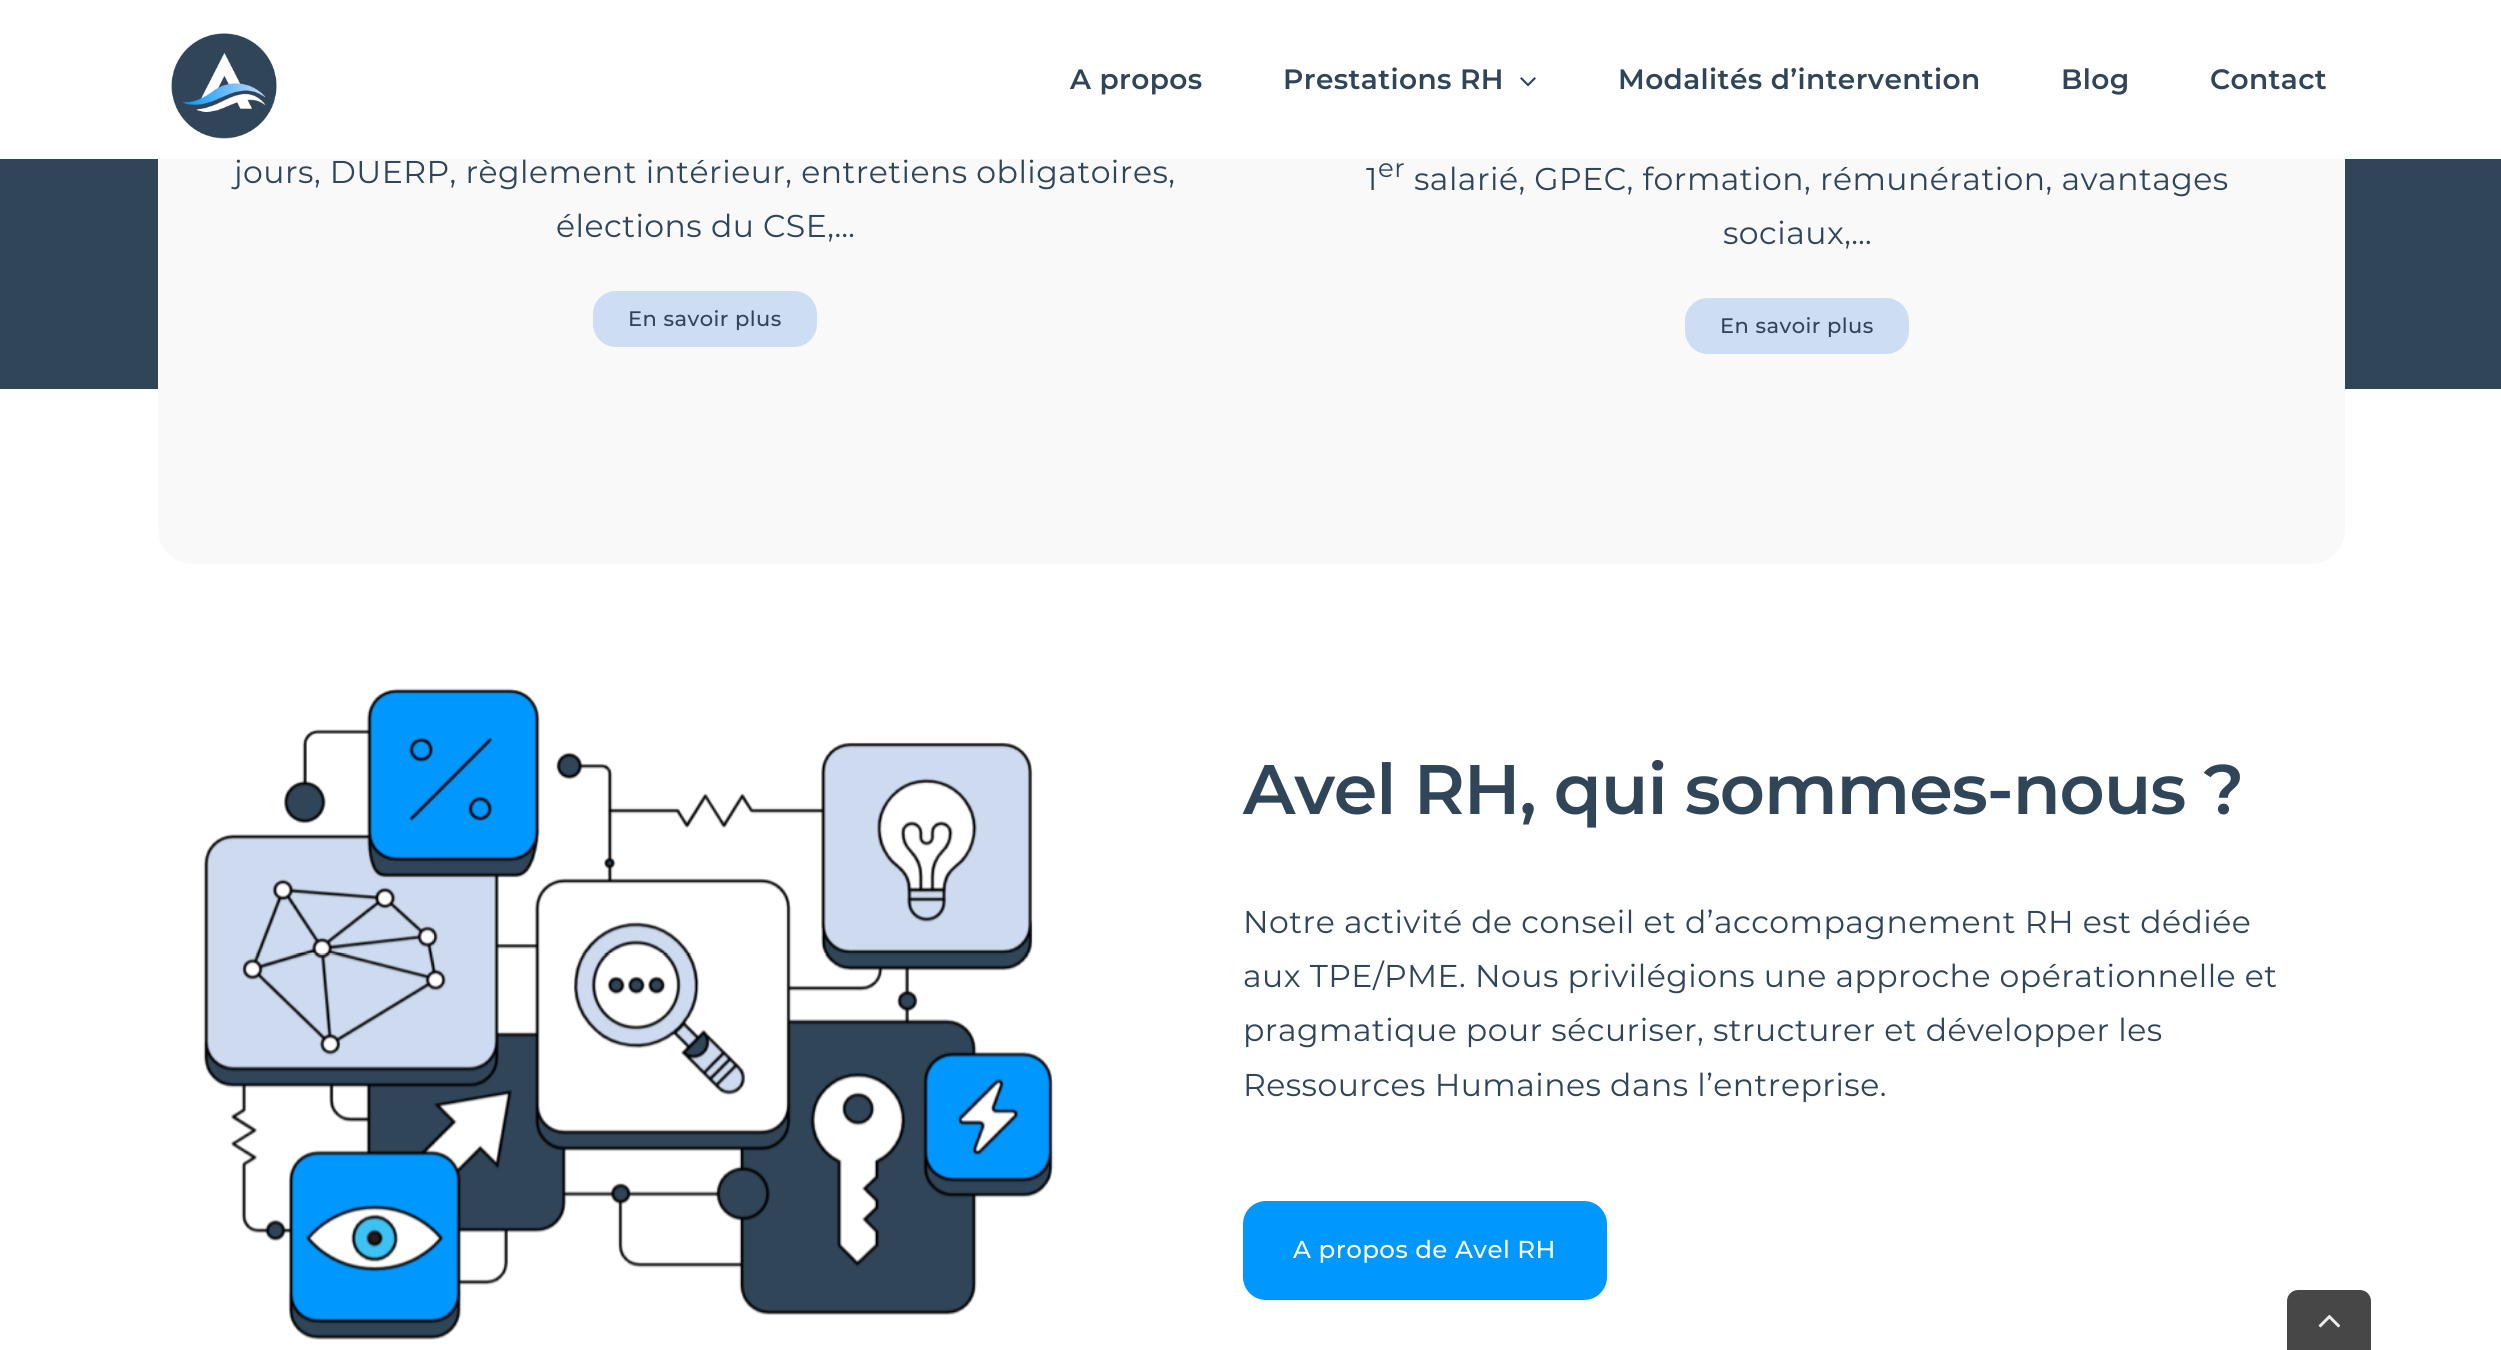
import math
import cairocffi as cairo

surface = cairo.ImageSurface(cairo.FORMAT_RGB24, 2501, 1350)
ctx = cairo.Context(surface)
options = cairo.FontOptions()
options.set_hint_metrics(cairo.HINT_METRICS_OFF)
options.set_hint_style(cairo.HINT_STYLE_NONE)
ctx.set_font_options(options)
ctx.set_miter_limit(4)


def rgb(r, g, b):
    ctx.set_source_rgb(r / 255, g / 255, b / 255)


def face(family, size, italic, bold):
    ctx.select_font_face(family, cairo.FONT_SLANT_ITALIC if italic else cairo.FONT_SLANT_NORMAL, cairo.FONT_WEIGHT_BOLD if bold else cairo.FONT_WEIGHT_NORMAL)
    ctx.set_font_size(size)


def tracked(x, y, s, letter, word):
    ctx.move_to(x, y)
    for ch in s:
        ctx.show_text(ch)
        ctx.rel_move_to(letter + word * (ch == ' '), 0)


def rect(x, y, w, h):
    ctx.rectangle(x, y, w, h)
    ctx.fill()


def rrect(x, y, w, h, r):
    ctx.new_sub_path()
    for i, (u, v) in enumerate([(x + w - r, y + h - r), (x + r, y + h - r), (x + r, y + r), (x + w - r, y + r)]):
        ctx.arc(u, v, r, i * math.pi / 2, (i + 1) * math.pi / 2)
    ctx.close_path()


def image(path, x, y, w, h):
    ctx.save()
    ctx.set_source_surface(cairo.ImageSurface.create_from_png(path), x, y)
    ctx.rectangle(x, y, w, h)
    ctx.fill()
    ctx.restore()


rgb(255, 255, 255)
ctx.paint()
rgb(48, 69, 88)
rect(0, 159, 2501, 230)
rgb(249, 249, 249)
rrect(158, -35, 2187, 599, 35)
ctx.fill()
rgb(255, 255, 255)
rect(158, 0, 2187, 159)
image('image0.png', 171, 33, 106, 106)
face('Montserrat SemiBold', 28, 0, 0)
rgb(48, 69, 88)
tracked(1070, 89, 'A propos', 0.4, 0)
tracked(1283, 89, 'Prestations RH', 0.4, 0)
image('image1.png', 1520, 77, 16, 10)
tracked(1618, 89, 'Modalités d’intervention', 0.4, 0)
tracked(2061, 89, 'Blog', 0.4, 0)
tracked(2210, 89, 'Contact', 0.4, 0)
face('Montserrat', 31.5, 0, 0)
tracked(234, 183, 'jours, DUERP, règlement intérieur, entretiens obligatoires,', 0.47, 0)
tracked(556, 237, 'élections du CSE,…', 0.47, 0)
rgb(205, 221, 243)
rrect(593, 291, 224, 56, 23)
ctx.fill()
face('Montserrat Medium', 21, 0, 0)
rgb(48, 69, 88)
tracked(628, 326, 'En savoir plus', 0.47, 0)
face('Montserrat', 31.5, 0, 0)
tracked(1366, 190, '1', 0.47, 0)
face('Montserrat', 26, 0, 0)
tracked(1378, 177, 'er', 0.47, 0)
face('Montserrat', 31.5, 0, 0)
tracked(1414, 190, 'salarié, GPEC, formation, rémunération, avantages', 0.47, 0)
tracked(1723, 244, 'sociaux,…', 0.47, 0)
rgb(205, 221, 243)
rrect(1685, 298, 224, 56, 23)
ctx.fill()
face('Montserrat Medium', 21, 0, 0)
rgb(48, 69, 88)
tracked(1720, 333, 'En savoir plus', 0.47, 0)
image('image2.png', 203, 688, 851, 652)
face('Montserrat SemiBold', 70, 0, 0)
tracked(1243, 814, 'Avel RH, qui sommes-nous ?', -1.05, 0)
face('Montserrat', 31.5, 0, 0)
tracked(1243, 933, 'Notre activité de conseil et d’accompagnement RH est dédiée', 0.47, 0)
tracked(1243, 987, 'aux TPE/PME. Nous privilégions une approche opérationnelle et', 0.47, 0)
tracked(1243, 1041, 'pragmatique pour sécuriser, structurer et développer les', 0.47, 0)
tracked(1243, 1096, 'Ressources Humaines dans l’entreprise.', 0.47, 0)
rgb(0, 152, 255)
rrect(1243, 1201, 364, 99, 23)
ctx.fill()
face('Montserrat Medium', 24.5, 0, 0)
rgb(255, 255, 255)
tracked(1293, 1258, 'A propos de Avel RH', 0.47, 0)
rgb(71, 71, 71)
ctx.new_path()
ctx.move_to(2298, 1290)
ctx.line_to(2360, 1290)
ctx.curve_to(2366, 1290, 2371, 1295, 2371, 1301)
ctx.line_to(2371, 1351)
ctx.line_to(2287, 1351)
ctx.line_to(2287, 1301)
ctx.curve_to(2287, 1295, 2292, 1290, 2298, 1290)
ctx.close_path()
ctx.fill()
image('image3.png', 2318, 1314, 22, 14)
surface.write_to_png('render.png')
